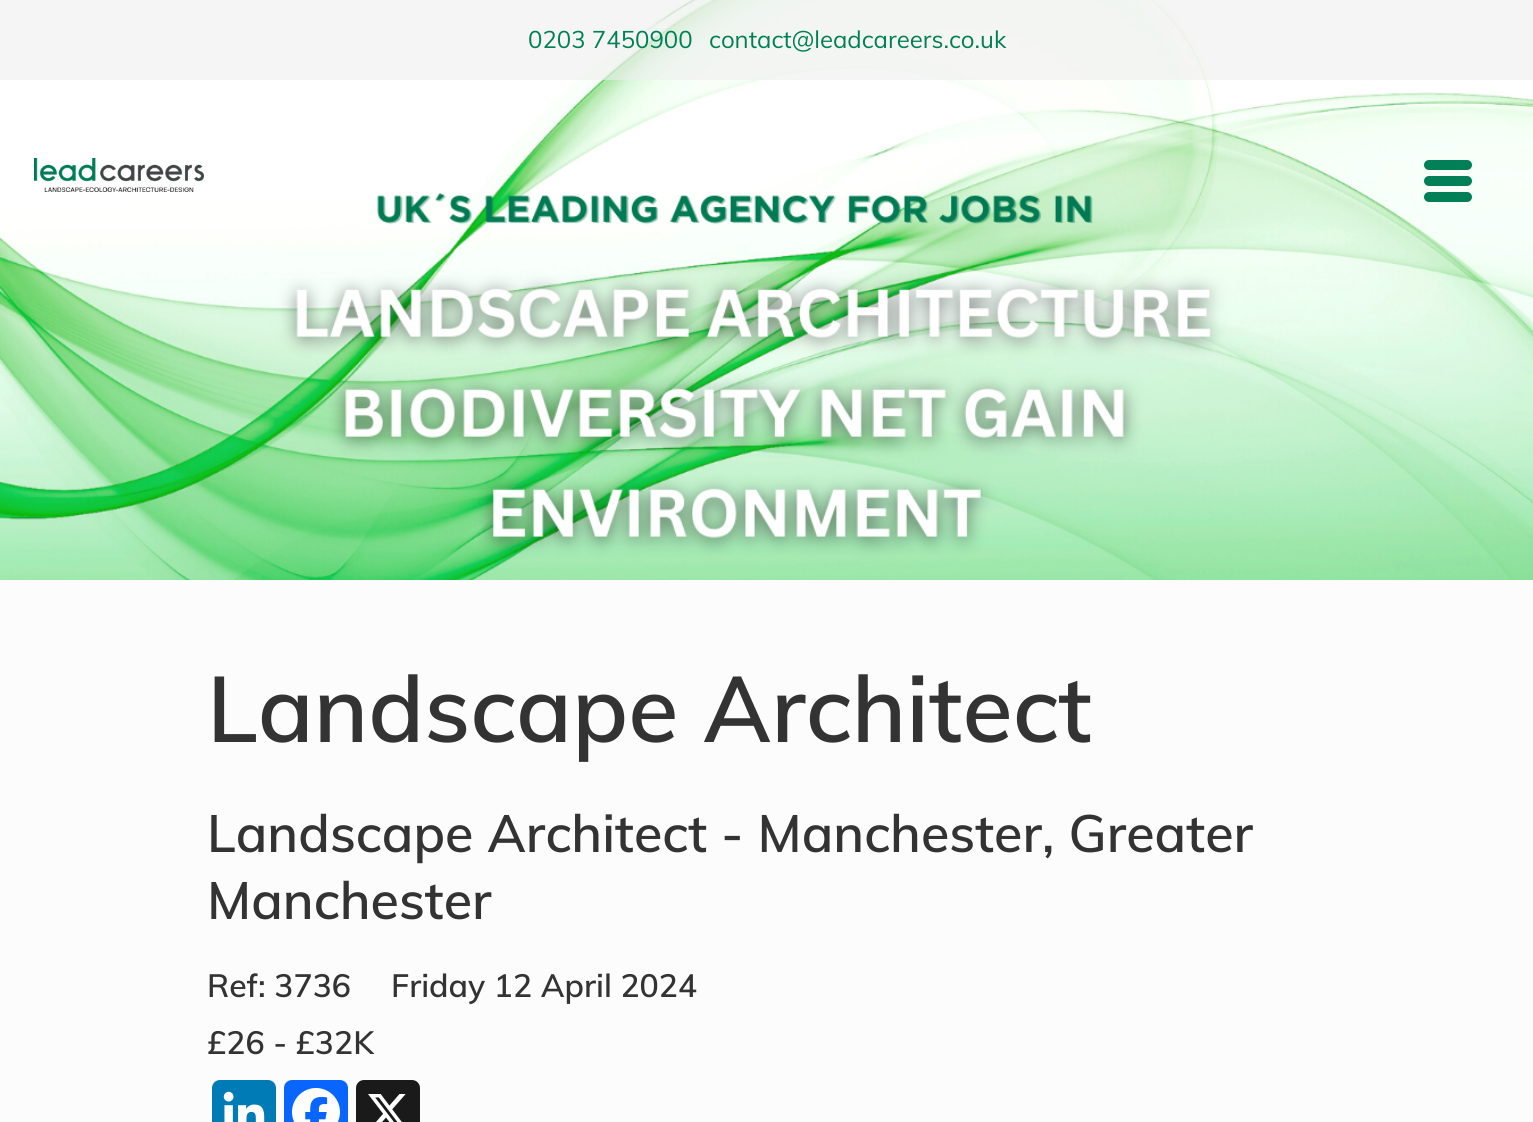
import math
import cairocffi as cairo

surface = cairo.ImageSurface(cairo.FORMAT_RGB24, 1533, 1122)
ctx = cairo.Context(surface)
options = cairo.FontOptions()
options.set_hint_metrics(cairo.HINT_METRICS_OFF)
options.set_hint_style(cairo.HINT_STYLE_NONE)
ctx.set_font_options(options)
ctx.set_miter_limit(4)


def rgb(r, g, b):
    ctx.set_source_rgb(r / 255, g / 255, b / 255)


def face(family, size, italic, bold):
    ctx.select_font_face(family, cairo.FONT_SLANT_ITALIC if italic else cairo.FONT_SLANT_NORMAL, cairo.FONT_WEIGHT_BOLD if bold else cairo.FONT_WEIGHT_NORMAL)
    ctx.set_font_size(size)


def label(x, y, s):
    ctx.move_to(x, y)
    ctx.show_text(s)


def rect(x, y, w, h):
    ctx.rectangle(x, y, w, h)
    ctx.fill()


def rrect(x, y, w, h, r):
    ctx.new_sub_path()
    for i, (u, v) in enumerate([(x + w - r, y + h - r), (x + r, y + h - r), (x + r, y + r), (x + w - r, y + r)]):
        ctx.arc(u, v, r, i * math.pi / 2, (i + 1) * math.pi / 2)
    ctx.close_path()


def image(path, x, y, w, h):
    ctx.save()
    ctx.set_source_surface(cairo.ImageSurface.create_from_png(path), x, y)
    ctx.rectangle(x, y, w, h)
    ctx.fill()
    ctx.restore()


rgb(252, 252, 252)
ctx.paint()
image('image0.png', 0, 0, 1533, 580)
ctx.set_source_rgba(0.937, 0.937, 0.937, 0.6)
rect(0, 0, 1533, 80)
face('Muli', 24, 0, 0)
rgb(1, 128, 87)
label(528, 48, '0203 7450900')
label(709, 48, 'contact@leadcareers.co.uk')
image('image1.png', 34, 158, 170, 34)
rrect(1424, 160, 48, 10, 5)
ctx.fill()
rrect(1424, 176, 48, 10, 5)
ctx.fill()
rrect(1424, 192, 48, 10, 5)
ctx.fill()
face('Muli SemiBold', 92, 0, 0)
rgb(51, 51, 51)
label(207, 742, 'Landscape Architect')
face('Muli SemiBold', 52, 0, 0)
label(207, 852, 'Landscape Architect - Manchester, Greater')
label(207, 919, 'Manchester')
face('Muli SemiBold', 32, 0, 0)
label(207, 997, 'Ref: 3736')
label(391, 997, 'Friday 12 April 2024')
label(207, 1054, '£26 - £32K')
rgb(0, 123, 181)
rrect(212, 1080, 64, 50, 8)
ctx.fill()
image('image2.png', 223, 1091, 42, 31)
rgb(8, 102, 255)
rrect(284, 1080, 64, 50, 8)
ctx.fill()
image('image3.png', 292, 1088, 48, 34)
rgb(26, 26, 26)
rrect(356, 1080, 64, 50, 8)
ctx.fill()
image('image4.png', 368, 1094, 38, 28)
surface.write_to_png('render.png')
